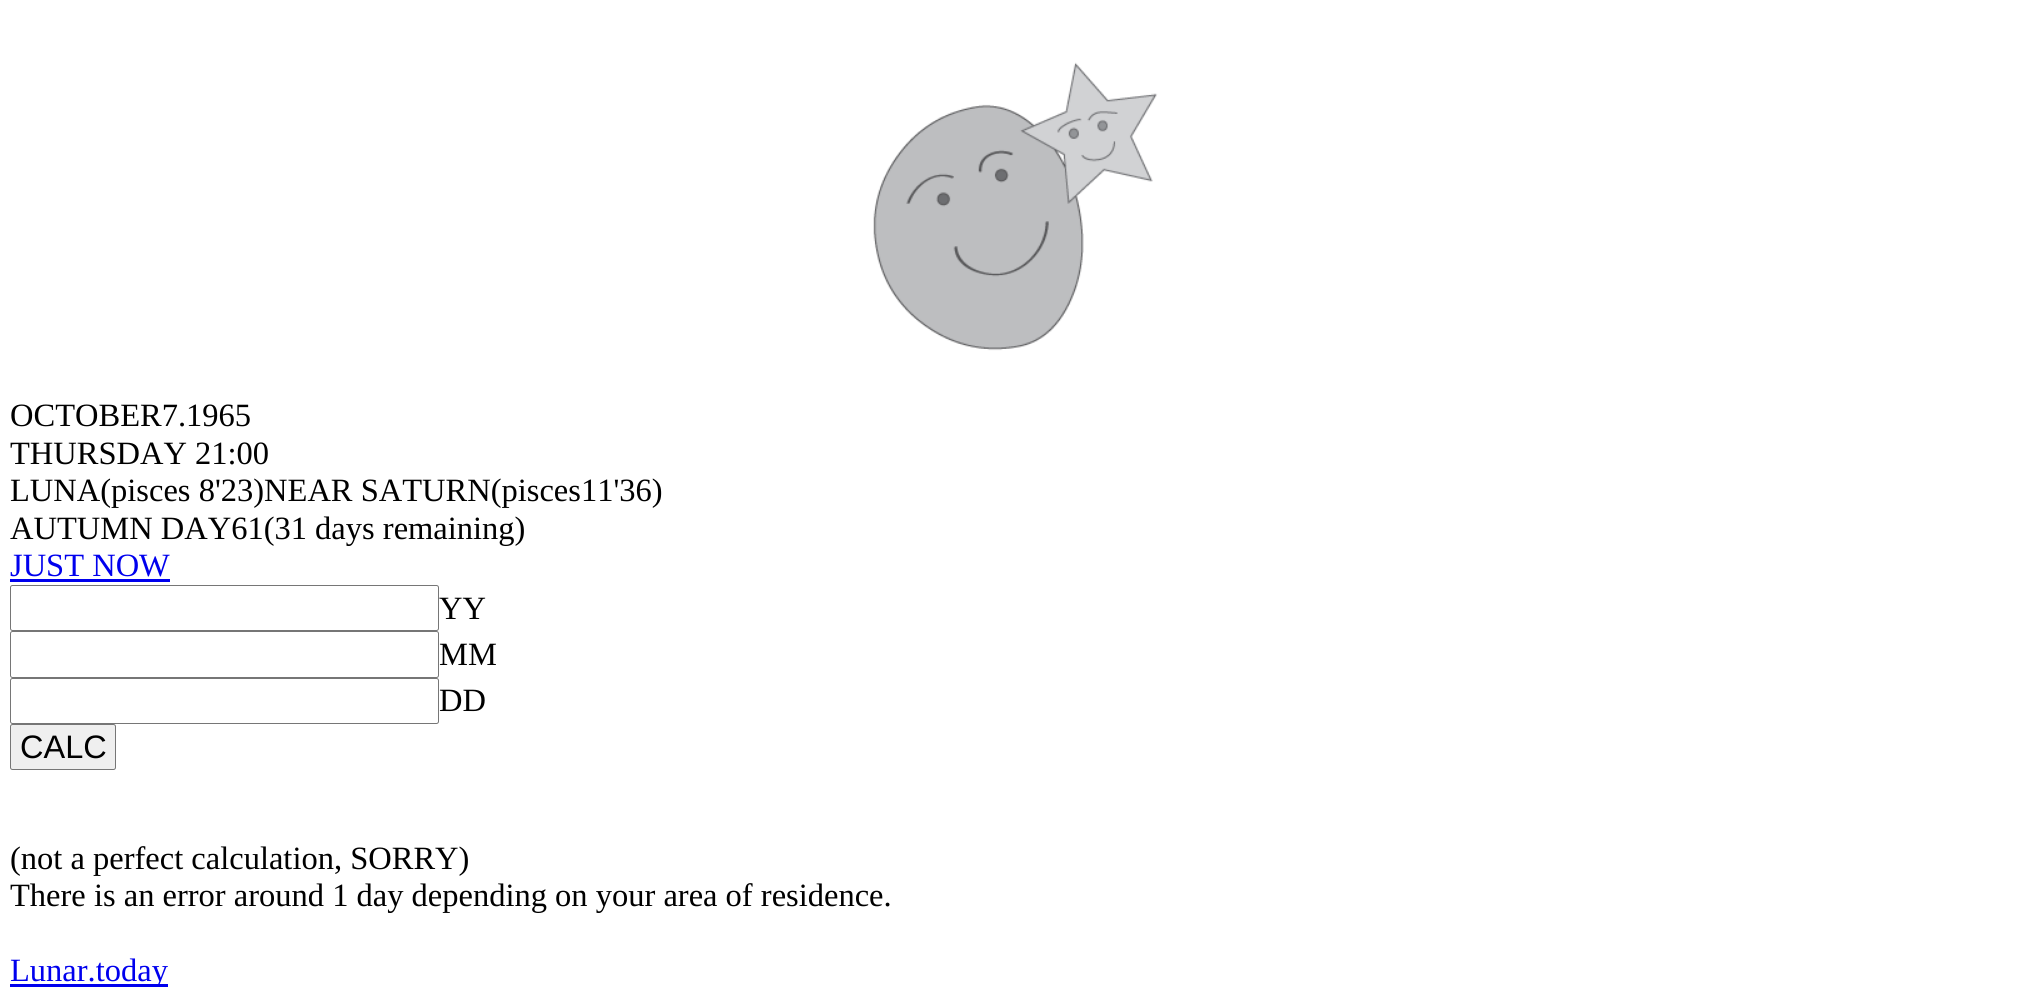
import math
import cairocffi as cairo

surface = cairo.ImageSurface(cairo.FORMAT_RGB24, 2028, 987)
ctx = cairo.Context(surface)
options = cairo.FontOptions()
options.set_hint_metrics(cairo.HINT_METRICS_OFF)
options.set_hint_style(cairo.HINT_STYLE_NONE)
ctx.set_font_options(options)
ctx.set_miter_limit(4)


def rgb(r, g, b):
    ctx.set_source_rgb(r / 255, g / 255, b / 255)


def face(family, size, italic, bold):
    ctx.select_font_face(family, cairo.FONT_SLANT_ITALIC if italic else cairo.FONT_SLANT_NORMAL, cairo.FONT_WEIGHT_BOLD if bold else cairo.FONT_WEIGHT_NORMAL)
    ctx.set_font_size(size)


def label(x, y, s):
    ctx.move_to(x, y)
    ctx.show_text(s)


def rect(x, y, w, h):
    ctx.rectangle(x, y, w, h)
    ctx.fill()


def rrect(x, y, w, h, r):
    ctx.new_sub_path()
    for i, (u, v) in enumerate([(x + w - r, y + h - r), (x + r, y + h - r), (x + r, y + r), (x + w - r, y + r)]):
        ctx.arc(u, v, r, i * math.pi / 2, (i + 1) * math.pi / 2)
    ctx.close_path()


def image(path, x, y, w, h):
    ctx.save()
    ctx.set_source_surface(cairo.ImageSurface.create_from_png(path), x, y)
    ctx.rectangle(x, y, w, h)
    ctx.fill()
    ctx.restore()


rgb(255, 255, 255)
ctx.paint()
image('image0.png', 873, 62, 285, 289)
face('Liberation Serif', 32.5, 0, 0)
rgb(0, 0, 0)
label(10, 426, 'OCTOBER7.1965')
label(10, 464, 'THURSDAY 21:00')
label(10, 501, 'LUNA(pisces 8\'23)NEAR SATURN(pisces11\'36)')
label(10, 539, 'AUTUMN DAY61(31 days remaining)')
rgb(0, 0, 238)
label(10, 576, 'JUST NOW')
rect(10, 579, 160, 3)
rrect(10.5, 585.5, 428, 45, 2)
rgb(118, 118, 118)
ctx.set_line_width(1)
ctx.stroke()
rgb(0, 0, 0)
label(439, 619, 'YY')
rrect(10.5, 631.5, 428, 46, 2)
rgb(118, 118, 118)
ctx.stroke()
rgb(0, 0, 0)
label(439, 665, 'MM')
rrect(10.5, 678.5, 428, 45, 2)
rgb(118, 118, 118)
ctx.stroke()
rgb(0, 0, 0)
label(439, 711, 'DD')
rgb(239, 239, 239)
rrect(10.5, 724.5, 105, 45, 2)
ctx.fill_preserve()
rgb(118, 118, 118)
ctx.stroke()
face('Liberation Sans', 32.5, 0, 0)
rgb(0, 0, 0)
label(20, 758, 'CALC')
face('Liberation Serif', 32.5, 0, 0)
label(10, 869, '(not a perfect calculation, SORRY)')
label(10, 906, 'There is an error around 1 day depending on your area of residence.')
rgb(0, 0, 238)
rect(10, 984, 158, 3)
label(10, 981, 'Lunar.today')
surface.write_to_png('render.png')
